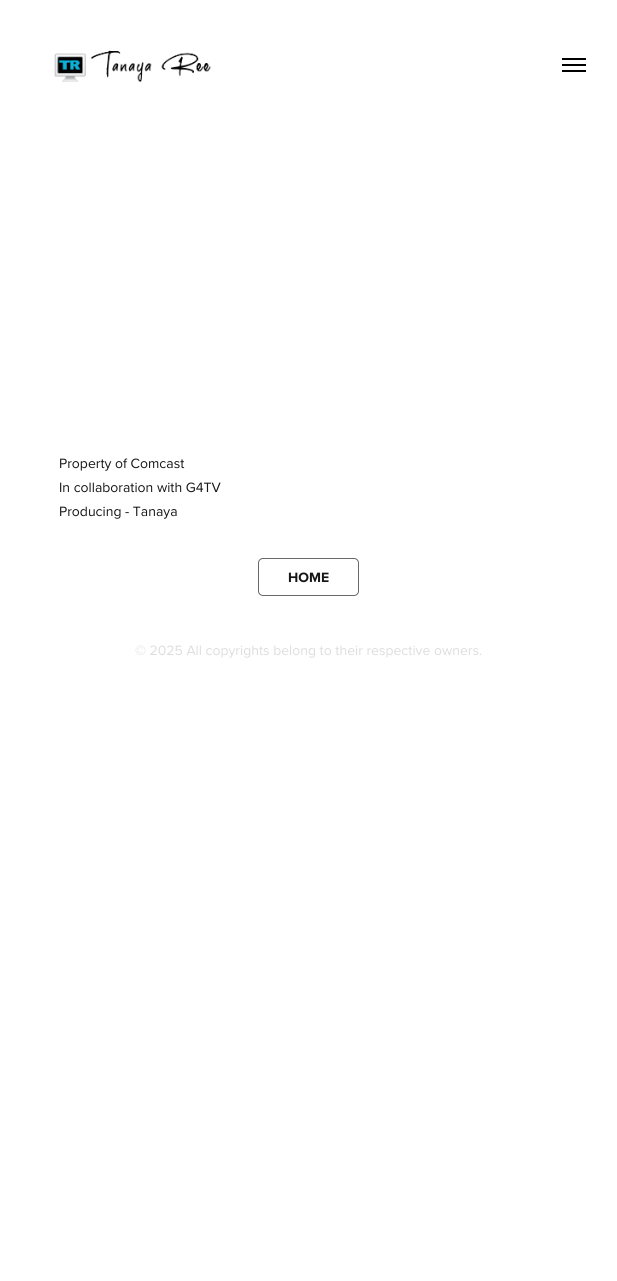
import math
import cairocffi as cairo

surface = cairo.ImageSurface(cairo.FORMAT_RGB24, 617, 1281)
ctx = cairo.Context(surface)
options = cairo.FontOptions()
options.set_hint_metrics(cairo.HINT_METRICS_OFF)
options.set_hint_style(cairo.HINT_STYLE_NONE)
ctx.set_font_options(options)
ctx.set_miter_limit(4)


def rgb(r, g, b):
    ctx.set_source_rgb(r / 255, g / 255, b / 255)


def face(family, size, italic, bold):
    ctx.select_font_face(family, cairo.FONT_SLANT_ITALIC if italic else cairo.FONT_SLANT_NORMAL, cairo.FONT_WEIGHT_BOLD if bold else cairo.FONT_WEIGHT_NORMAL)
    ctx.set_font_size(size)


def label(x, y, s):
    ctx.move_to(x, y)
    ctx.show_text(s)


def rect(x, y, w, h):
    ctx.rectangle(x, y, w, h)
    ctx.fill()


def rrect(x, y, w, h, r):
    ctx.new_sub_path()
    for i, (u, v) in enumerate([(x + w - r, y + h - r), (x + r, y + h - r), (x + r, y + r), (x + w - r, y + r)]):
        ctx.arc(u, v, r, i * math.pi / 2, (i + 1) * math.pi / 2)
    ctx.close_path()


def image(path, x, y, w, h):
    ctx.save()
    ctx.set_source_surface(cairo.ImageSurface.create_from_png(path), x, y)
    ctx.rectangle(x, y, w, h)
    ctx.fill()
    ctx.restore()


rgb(255, 255, 255)
ctx.paint()
image('image0.png', 54, 50, 157, 32)
rgb(0, 0, 0)
rect(562, 58, 24, 2)
rect(562, 64, 24, 2)
rect(562, 70, 24, 2)
face('Proxima Nova', 14, 0, 0)
rgb(23, 22, 22)
label(59, 468, 'Property of Comcast')
label(59, 492, 'In collaboration with G4TV')
label(59, 516, 'Producing - Tanaya')
rrect(258.5, 558.5, 100, 37, 4.5)
rgb(104, 104, 104)
ctx.set_line_width(1)
ctx.stroke()
face('Proxima Nova', 14, 0, 1)
rgb(23, 22, 22)
label(288, 582, 'HOME')
face('Proxima Nova', 14, 0, 0)
rgb(221, 221, 221)
label(135, 655, '© 2025 All copyrights belong to their respective owners.')
surface.write_to_png('render.png')
